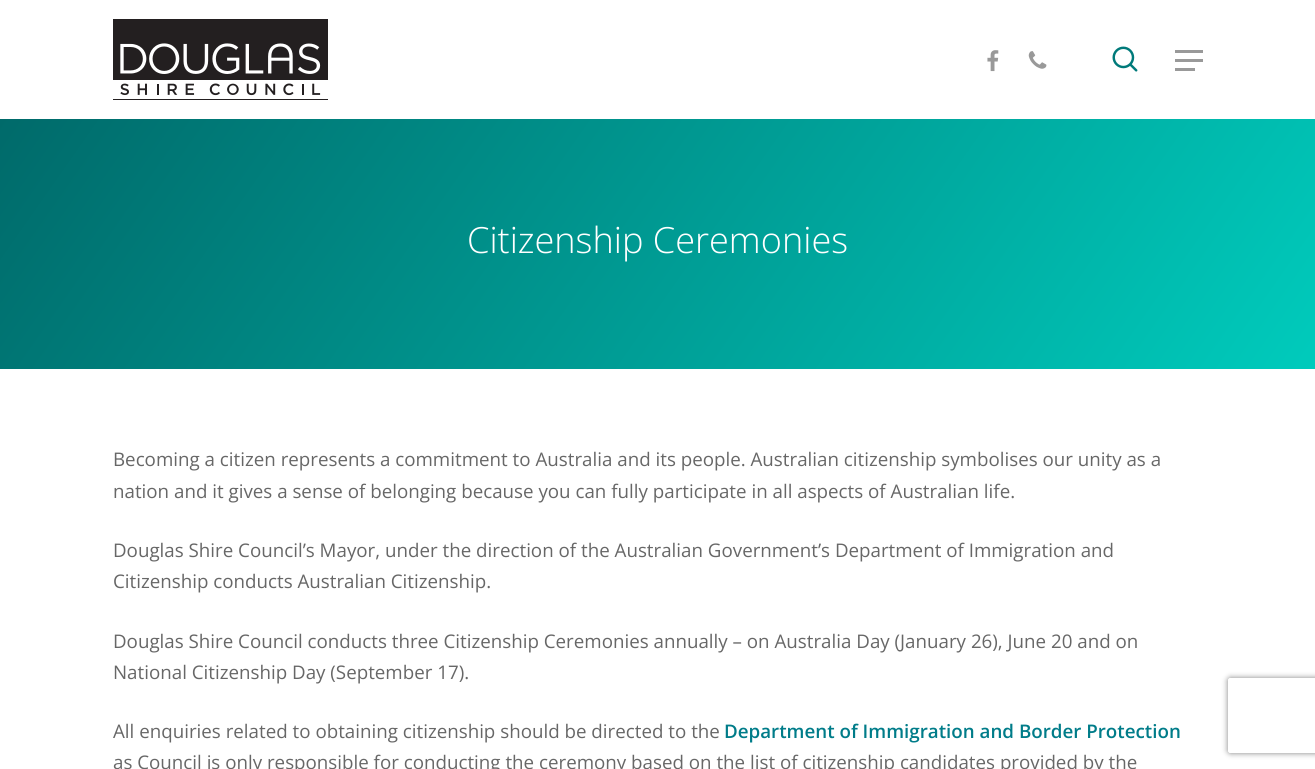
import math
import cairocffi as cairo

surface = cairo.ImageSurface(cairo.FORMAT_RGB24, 1315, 769)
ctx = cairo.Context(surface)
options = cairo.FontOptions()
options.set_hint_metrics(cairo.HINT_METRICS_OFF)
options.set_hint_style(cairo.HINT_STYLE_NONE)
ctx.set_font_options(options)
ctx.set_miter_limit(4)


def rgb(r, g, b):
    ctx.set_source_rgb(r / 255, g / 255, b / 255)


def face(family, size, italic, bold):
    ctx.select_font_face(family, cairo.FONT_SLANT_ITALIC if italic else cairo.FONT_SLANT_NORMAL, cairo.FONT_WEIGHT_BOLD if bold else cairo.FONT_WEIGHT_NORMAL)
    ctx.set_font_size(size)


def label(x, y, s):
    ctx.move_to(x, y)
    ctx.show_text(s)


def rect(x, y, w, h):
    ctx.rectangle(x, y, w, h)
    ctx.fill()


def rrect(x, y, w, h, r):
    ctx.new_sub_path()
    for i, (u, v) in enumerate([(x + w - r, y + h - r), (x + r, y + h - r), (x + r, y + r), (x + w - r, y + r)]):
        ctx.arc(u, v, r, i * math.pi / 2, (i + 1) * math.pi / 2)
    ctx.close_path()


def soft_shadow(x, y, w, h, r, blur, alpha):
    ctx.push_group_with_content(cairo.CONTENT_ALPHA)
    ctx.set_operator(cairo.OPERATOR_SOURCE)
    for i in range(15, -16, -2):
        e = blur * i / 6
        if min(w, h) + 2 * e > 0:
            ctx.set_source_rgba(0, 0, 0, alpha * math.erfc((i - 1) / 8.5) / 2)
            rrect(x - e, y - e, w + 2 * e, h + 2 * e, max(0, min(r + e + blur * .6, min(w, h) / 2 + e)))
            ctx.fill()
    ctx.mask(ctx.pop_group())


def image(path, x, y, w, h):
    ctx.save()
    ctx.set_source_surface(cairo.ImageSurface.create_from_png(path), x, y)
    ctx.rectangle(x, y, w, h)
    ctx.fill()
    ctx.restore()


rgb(255, 255, 255)
ctx.paint()
image('image0.png', 113, 19, 215, 81)
image('image1.png', 987, 50, 12, 22)
image('image2.png', 1028, 51, 19, 18)
image('image3.png', 1112, 46, 26, 26)
rgb(153, 153, 153)
rect(1175, 50, 28, 3)
rect(1175, 68, 20, 3)
rect(1175, 59, 28, 3)
gradient = cairo.LinearGradient(158, -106, 1157, 594)
gradient.add_color_stop_rgba(0, 0, 0.416, 0.416, 1)
gradient.add_color_stop_rgba(1, 0, 0.796, 0.737, 1)
ctx.set_source(gradient)
rect(0, 119, 1315, 250)
face('Open Sans Light', 36.1, 0, 0)
rgb(255, 255, 255)
label(467, 253, 'Citizenship Ceremonies')
face('Open Sans', 18.75, 0, 0)
rgb(103, 103, 103)
label(113, 466, 'Becoming a citizen represents a commitment to Australia and its people. Australian citizenship symbolises our unity as a')
label(113, 498, 'nation and it gives a sense of belonging because you can fully participate in all aspects of Australian life.')
label(113, 557, 'Douglas Shire Council’s Mayor, under the direction of the Australian Government’s Department of Immigration and')
label(113, 588, 'Citizenship conducts Australian Citizenship.')
label(113, 648, 'Douglas Shire Council conducts three Citizenship Ceremonies annually – on Australia Day (January 26), June 20 and on')
label(113, 679, 'National Citizenship Day (September 17).')
label(113, 738, 'All enquiries related to obtaining citizenship should be directed to the')
face('Open Sans SemiBold', 18.75, 0, 0)
rgb(0, 124, 137)
label(724, 738, 'Department of Immigration and Border Protection')
face('Open Sans', 18.75, 0, 0)
rgb(103, 103, 103)
label(113, 769, 'as Council is only responsible for conducting the ceremony based on the list of citizenship candidates provided by the')
ctx.save()
ctx.set_fill_rule(cairo.FILL_RULE_EVEN_ODD)
ctx.new_path()
ctx.move_to(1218, 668)
ctx.line_to(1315, 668)
ctx.line_to(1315, 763)
ctx.line_to(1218, 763)
ctx.close_path()
ctx.move_to(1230.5, 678)
ctx.line_to(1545.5, 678)
ctx.curve_to(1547, 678, 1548, 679, 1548, 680.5)
ctx.line_to(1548, 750.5)
ctx.curve_to(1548, 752, 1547, 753, 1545.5, 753)
ctx.line_to(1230.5, 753)
ctx.curve_to(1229, 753, 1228, 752, 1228, 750.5)
ctx.line_to(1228, 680.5)
ctx.curve_to(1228, 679, 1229, 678, 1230.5, 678)
ctx.close_path()
ctx.clip()
rgb(128, 128, 128)
soft_shadow(1228, 678, 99, 75, 2.5, 3, 1)
ctx.restore()
surface.write_to_png('render.png')
